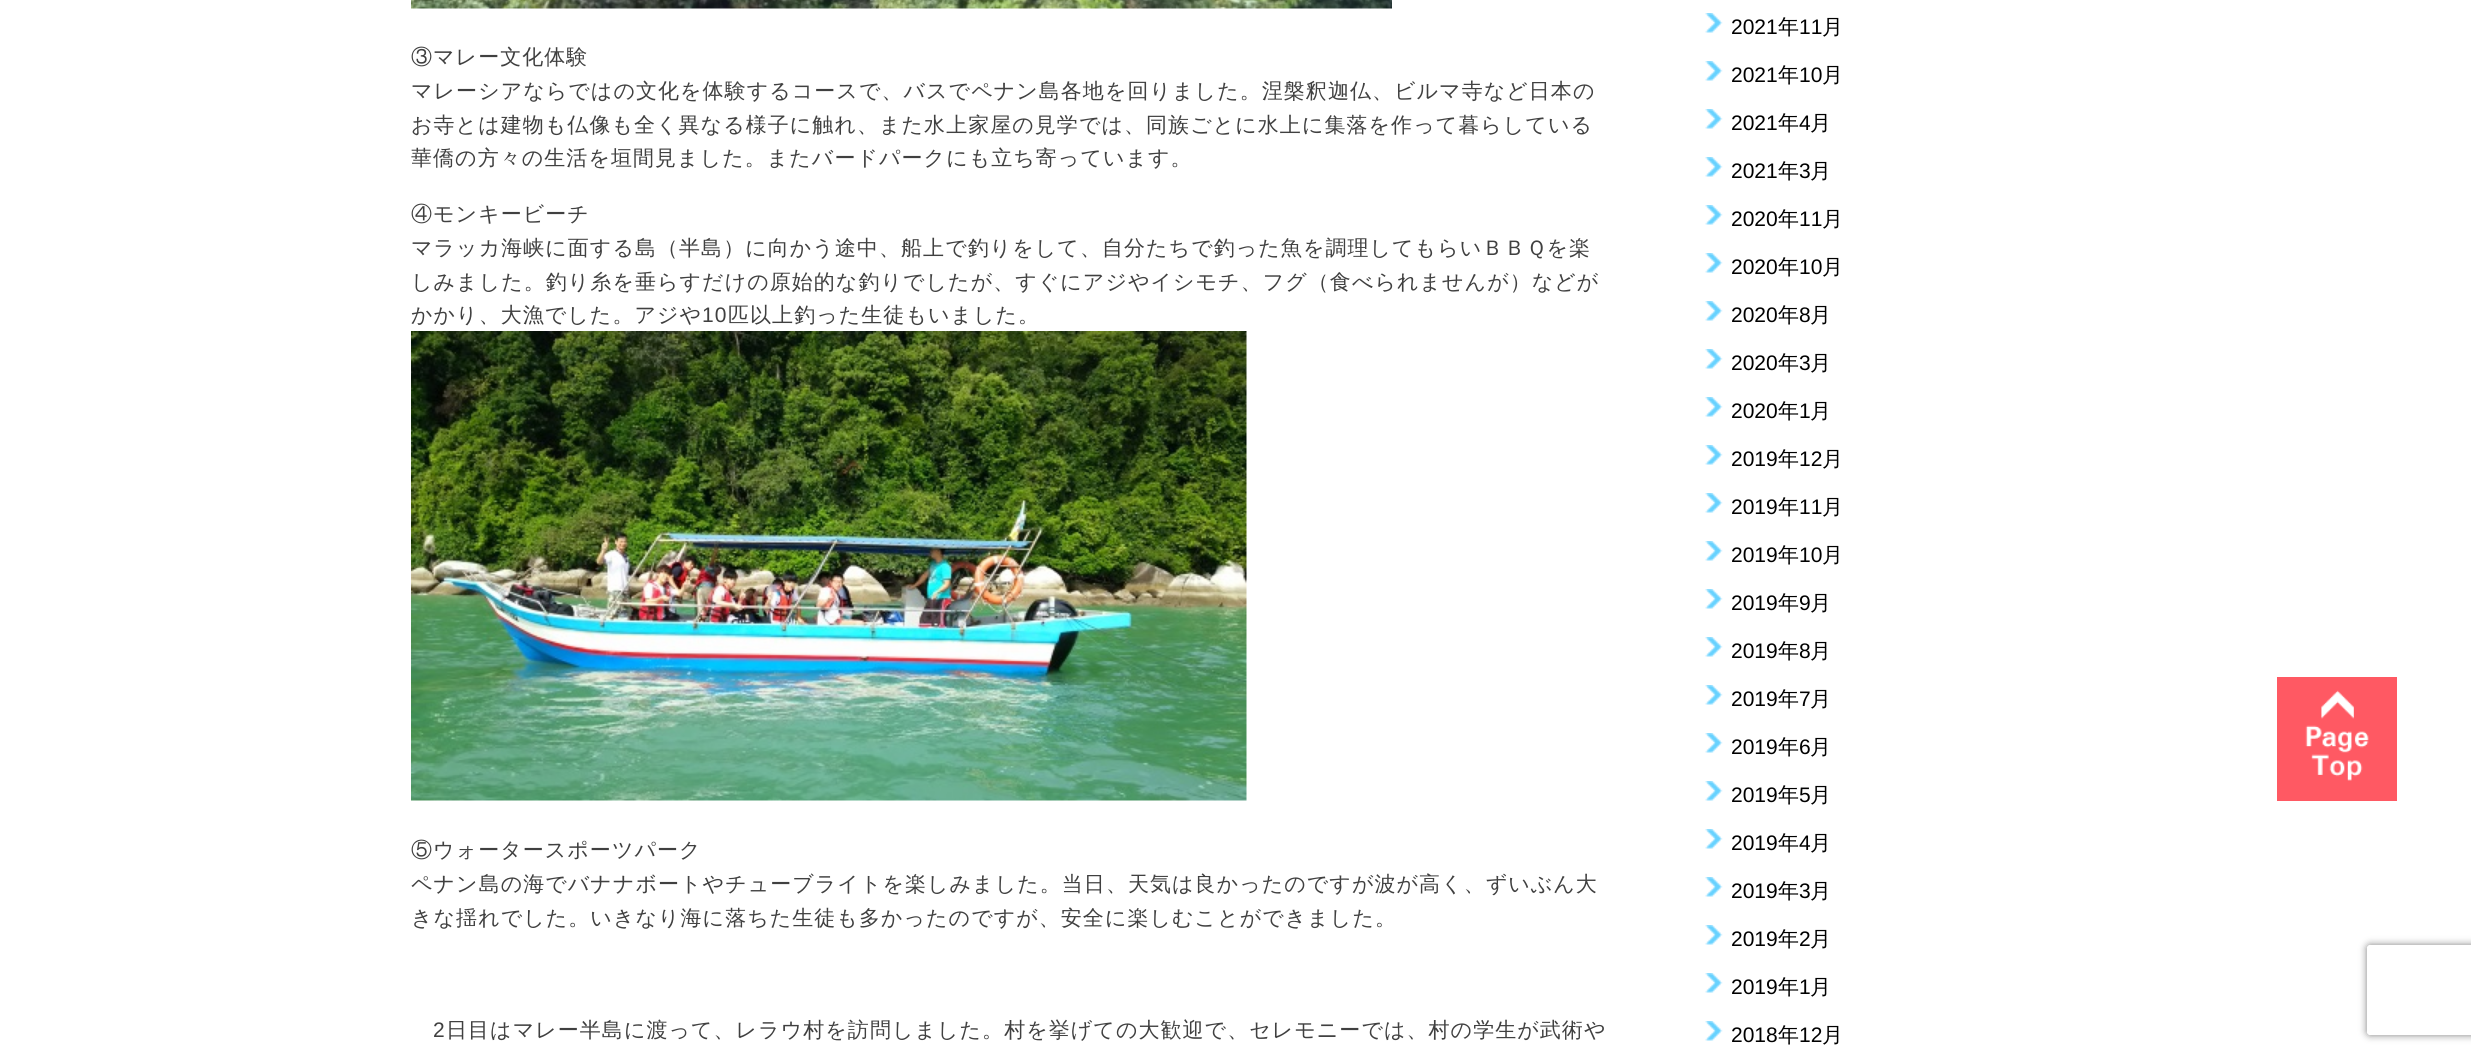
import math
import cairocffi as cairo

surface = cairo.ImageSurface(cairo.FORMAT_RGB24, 2471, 1055)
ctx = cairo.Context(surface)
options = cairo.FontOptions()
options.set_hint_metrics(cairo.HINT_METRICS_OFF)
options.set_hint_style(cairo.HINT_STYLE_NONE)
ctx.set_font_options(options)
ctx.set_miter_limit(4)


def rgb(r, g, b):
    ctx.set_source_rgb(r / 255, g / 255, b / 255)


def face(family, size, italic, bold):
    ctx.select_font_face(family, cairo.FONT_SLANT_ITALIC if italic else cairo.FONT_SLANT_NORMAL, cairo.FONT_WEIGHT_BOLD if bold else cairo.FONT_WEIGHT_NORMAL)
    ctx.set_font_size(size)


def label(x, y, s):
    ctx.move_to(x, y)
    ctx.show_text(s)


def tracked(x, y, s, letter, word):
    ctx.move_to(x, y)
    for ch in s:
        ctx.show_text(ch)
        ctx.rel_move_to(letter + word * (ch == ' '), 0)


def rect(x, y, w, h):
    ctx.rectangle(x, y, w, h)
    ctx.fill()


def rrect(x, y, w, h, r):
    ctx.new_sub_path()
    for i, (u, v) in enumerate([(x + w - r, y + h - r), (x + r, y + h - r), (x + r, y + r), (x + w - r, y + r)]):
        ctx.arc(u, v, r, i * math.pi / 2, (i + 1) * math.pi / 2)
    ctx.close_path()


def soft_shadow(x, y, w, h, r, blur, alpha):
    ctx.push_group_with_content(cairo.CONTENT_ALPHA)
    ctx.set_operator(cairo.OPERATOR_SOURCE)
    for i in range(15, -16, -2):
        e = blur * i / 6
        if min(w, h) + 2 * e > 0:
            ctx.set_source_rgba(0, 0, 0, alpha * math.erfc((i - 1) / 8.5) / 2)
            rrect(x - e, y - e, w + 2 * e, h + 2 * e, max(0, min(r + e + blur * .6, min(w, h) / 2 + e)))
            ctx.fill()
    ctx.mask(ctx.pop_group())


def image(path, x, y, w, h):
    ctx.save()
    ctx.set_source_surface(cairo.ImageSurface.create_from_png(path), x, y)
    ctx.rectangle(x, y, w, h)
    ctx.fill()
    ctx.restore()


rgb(255, 255, 255)
ctx.paint()
image('image0.png', 411, 0, 981, 9)
face('WenQuanYi Zen Hei Medium', 21, 0, 0)
rgb(64, 64, 64)
tracked(411, 64, '③マレー文化体験', 1.05, 0)
tracked(411, 98, 'マレーシアならではの文化を体験するコースで、バスでペナン島各地を回りました。涅槃釈迦仏、ビルマ寺など日本の', 1.05, 0)
tracked(411, 132, 'お寺とは建物も仏像も全く異なる様子に触れ、また水上家屋の見学では、同族ごとに水上に集落を作って暮らしている', 1.05, 0)
tracked(411, 165, '華僑の方々の生活を垣間見ました。またバードパークにも立ち寄っています。', 1.05, 0)
tracked(411, 221, '④モンキービーチ', 1.05, 0)
tracked(411, 255, 'マラッカ海峡に面する島（半島）に向かう途中、船上で釣りをして、自分たちで釣った魚を調理してもらいＢＢＱを楽', 1.05, 0)
tracked(411, 289, 'しみました。釣り糸を垂らすだけの原始的な釣りでしたが、すぐにアジやイシモチ、フグ（食べられませんが）などが', 1.05, 0)
tracked(411, 322, 'かかり、大漁でした。アジや', 1.05, 0)
face('Liberation Sans', 21, 0, 0)
tracked(702, 322, '10', 1.05, 0)
face('WenQuanYi Zen Hei Medium', 21, 0, 0)
tracked(728, 322, '匹以上釣った生徒もいました。', 1.05, 0)
image('image1.png', 411, 331, 836, 470)
tracked(411, 857, '⑤ウォータースポーツパーク', 1.05, 0)
tracked(411, 891, 'ペナン島の海でバナナボートやチューブライトを楽しみました。当日、天気は良かったのですが波が高く、ずいぶん大', 1.05, 0)
tracked(411, 925, 'きな揺れでした。いきなり海に落ちた生徒も多かったのですが、安全に楽しむことができました。', 1.05, 0)
face('Liberation Sans', 21, 0, 0)
tracked(433, 1037, '2', 1.05, 0)
face('WenQuanYi Zen Hei Medium', 21, 0, 0)
tracked(446, 1037, '日目はマレー半島に渡って、レラウ村を訪問しました。村を挙げての大歓迎で、セレモニーでは、村の学生が武術や', 1.05, 0)
image('image2.png', 1705, 13, 18, 20)
face('Liberation Sans', 21, 0, 0)
rgb(0, 0, 0)
label(1731, 34, '2021')
face('WenQuanYi Zen Hei Medium', 21, 0, 0)
label(1778, 34, '年')
face('Liberation Sans', 21, 0, 0)
label(1799, 34, '11')
face('WenQuanYi Zen Hei Medium', 21, 0, 0)
label(1822, 34, '月')
image('image2.png', 1705, 61, 18, 20)
face('Liberation Sans', 21, 0, 0)
label(1731, 82, '2021')
face('WenQuanYi Zen Hei Medium', 21, 0, 0)
label(1778, 82, '年')
face('Liberation Sans', 21, 0, 0)
label(1799, 82, '10')
face('WenQuanYi Zen Hei Medium', 21, 0, 0)
label(1822, 82, '月')
image('image2.png', 1705, 109, 18, 20)
face('Liberation Sans', 21, 0, 0)
label(1731, 130, '2021')
face('WenQuanYi Zen Hei Medium', 21, 0, 0)
label(1778, 130, '年')
face('Liberation Sans', 21, 0, 0)
label(1799, 130, '4')
face('WenQuanYi Zen Hei Medium', 21, 0, 0)
label(1810, 130, '月')
image('image2.png', 1705, 157, 18, 20)
face('Liberation Sans', 21, 0, 0)
label(1731, 178, '2021')
face('WenQuanYi Zen Hei Medium', 21, 0, 0)
label(1778, 178, '年')
face('Liberation Sans', 21, 0, 0)
label(1799, 178, '3')
face('WenQuanYi Zen Hei Medium', 21, 0, 0)
label(1810, 178, '月')
image('image2.png', 1705, 205, 18, 20)
face('Liberation Sans', 21, 0, 0)
label(1731, 226, '2020')
face('WenQuanYi Zen Hei Medium', 21, 0, 0)
label(1778, 226, '年')
face('Liberation Sans', 21, 0, 0)
label(1799, 226, '11')
face('WenQuanYi Zen Hei Medium', 21, 0, 0)
label(1822, 226, '月')
image('image2.png', 1705, 253, 18, 20)
face('Liberation Sans', 21, 0, 0)
label(1731, 274, '2020')
face('WenQuanYi Zen Hei Medium', 21, 0, 0)
label(1778, 274, '年')
face('Liberation Sans', 21, 0, 0)
label(1799, 274, '10')
face('WenQuanYi Zen Hei Medium', 21, 0, 0)
label(1822, 274, '月')
image('image2.png', 1705, 301, 18, 20)
face('Liberation Sans', 21, 0, 0)
label(1731, 322, '2020')
face('WenQuanYi Zen Hei Medium', 21, 0, 0)
label(1778, 322, '年')
face('Liberation Sans', 21, 0, 0)
label(1799, 322, '8')
face('WenQuanYi Zen Hei Medium', 21, 0, 0)
label(1810, 322, '月')
image('image2.png', 1705, 349, 18, 20)
face('Liberation Sans', 21, 0, 0)
label(1731, 370, '2020')
face('WenQuanYi Zen Hei Medium', 21, 0, 0)
label(1778, 370, '年')
face('Liberation Sans', 21, 0, 0)
label(1799, 370, '3')
face('WenQuanYi Zen Hei Medium', 21, 0, 0)
label(1810, 370, '月')
image('image2.png', 1705, 397, 18, 20)
face('Liberation Sans', 21, 0, 0)
label(1731, 418, '2020')
face('WenQuanYi Zen Hei Medium', 21, 0, 0)
label(1778, 418, '年')
face('Liberation Sans', 21, 0, 0)
label(1799, 418, '1')
face('WenQuanYi Zen Hei Medium', 21, 0, 0)
label(1810, 418, '月')
image('image2.png', 1705, 445, 18, 20)
face('Liberation Sans', 21, 0, 0)
label(1731, 466, '2019')
face('WenQuanYi Zen Hei Medium', 21, 0, 0)
label(1778, 466, '年')
face('Liberation Sans', 21, 0, 0)
label(1799, 466, '12')
face('WenQuanYi Zen Hei Medium', 21, 0, 0)
label(1822, 466, '月')
image('image2.png', 1705, 493, 18, 20)
face('Liberation Sans', 21, 0, 0)
label(1731, 514, '2019')
face('WenQuanYi Zen Hei Medium', 21, 0, 0)
label(1778, 514, '年')
face('Liberation Sans', 21, 0, 0)
label(1799, 514, '11')
face('WenQuanYi Zen Hei Medium', 21, 0, 0)
label(1822, 514, '月')
image('image2.png', 1705, 541, 18, 20)
face('Liberation Sans', 21, 0, 0)
label(1731, 562, '2019')
face('WenQuanYi Zen Hei Medium', 21, 0, 0)
label(1778, 562, '年')
face('Liberation Sans', 21, 0, 0)
label(1799, 562, '10')
face('WenQuanYi Zen Hei Medium', 21, 0, 0)
label(1822, 562, '月')
image('image2.png', 1705, 589, 18, 20)
face('Liberation Sans', 21, 0, 0)
label(1731, 610, '2019')
face('WenQuanYi Zen Hei Medium', 21, 0, 0)
label(1778, 610, '年')
face('Liberation Sans', 21, 0, 0)
label(1799, 610, '9')
face('WenQuanYi Zen Hei Medium', 21, 0, 0)
label(1810, 610, '月')
image('image2.png', 1705, 637, 18, 20)
face('Liberation Sans', 21, 0, 0)
label(1731, 658, '2019')
face('WenQuanYi Zen Hei Medium', 21, 0, 0)
label(1778, 658, '年')
face('Liberation Sans', 21, 0, 0)
label(1799, 658, '8')
face('WenQuanYi Zen Hei Medium', 21, 0, 0)
label(1810, 658, '月')
image('image2.png', 1705, 685, 18, 20)
face('Liberation Sans', 21, 0, 0)
label(1731, 706, '2019')
face('WenQuanYi Zen Hei Medium', 21, 0, 0)
label(1778, 706, '年')
face('Liberation Sans', 21, 0, 0)
label(1799, 706, '7')
face('WenQuanYi Zen Hei Medium', 21, 0, 0)
label(1810, 706, '月')
image('image2.png', 1705, 733, 18, 20)
face('Liberation Sans', 21, 0, 0)
label(1731, 754, '2019')
face('WenQuanYi Zen Hei Medium', 21, 0, 0)
label(1778, 754, '年')
face('Liberation Sans', 21, 0, 0)
label(1799, 754, '6')
face('WenQuanYi Zen Hei Medium', 21, 0, 0)
label(1810, 754, '月')
image('image2.png', 1705, 781, 18, 20)
face('Liberation Sans', 21, 0, 0)
label(1731, 802, '2019')
face('WenQuanYi Zen Hei Medium', 21, 0, 0)
label(1778, 802, '年')
face('Liberation Sans', 21, 0, 0)
label(1799, 802, '5')
face('WenQuanYi Zen Hei Medium', 21, 0, 0)
label(1810, 802, '月')
image('image2.png', 1705, 829, 18, 20)
face('Liberation Sans', 21, 0, 0)
label(1731, 850, '2019')
face('WenQuanYi Zen Hei Medium', 21, 0, 0)
label(1778, 850, '年')
face('Liberation Sans', 21, 0, 0)
label(1799, 850, '4')
face('WenQuanYi Zen Hei Medium', 21, 0, 0)
label(1810, 850, '月')
image('image2.png', 1705, 877, 18, 20)
face('Liberation Sans', 21, 0, 0)
label(1731, 898, '2019')
face('WenQuanYi Zen Hei Medium', 21, 0, 0)
label(1778, 898, '年')
face('Liberation Sans', 21, 0, 0)
label(1799, 898, '3')
face('WenQuanYi Zen Hei Medium', 21, 0, 0)
label(1810, 898, '月')
image('image2.png', 1705, 925, 18, 20)
face('Liberation Sans', 21, 0, 0)
label(1731, 946, '2019')
face('WenQuanYi Zen Hei Medium', 21, 0, 0)
label(1778, 946, '年')
face('Liberation Sans', 21, 0, 0)
label(1799, 946, '2')
face('WenQuanYi Zen Hei Medium', 21, 0, 0)
label(1810, 946, '月')
image('image2.png', 1705, 973, 18, 20)
face('Liberation Sans', 21, 0, 0)
label(1731, 994, '2019')
face('WenQuanYi Zen Hei Medium', 21, 0, 0)
label(1778, 994, '年')
face('Liberation Sans', 21, 0, 0)
label(1799, 994, '1')
face('WenQuanYi Zen Hei Medium', 21, 0, 0)
label(1810, 994, '月')
image('image2.png', 1705, 1021, 18, 20)
face('Liberation Sans', 21, 0, 0)
label(1731, 1042, '2018')
face('WenQuanYi Zen Hei Medium', 21, 0, 0)
label(1778, 1042, '年')
face('Liberation Sans', 21, 0, 0)
label(1799, 1042, '12')
face('WenQuanYi Zen Hei Medium', 21, 0, 0)
label(1822, 1042, '月')
rgb(255, 89, 99)
rect(2277, 677, 120, 124)
image('image3.png', 2305, 690, 64, 91)
ctx.save()
ctx.set_fill_rule(cairo.FILL_RULE_EVEN_ODD)
ctx.new_path()
ctx.move_to(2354, 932)
ctx.line_to(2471, 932)
ctx.line_to(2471, 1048)
ctx.line_to(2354, 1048)
ctx.close_path()
ctx.move_to(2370, 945)
ctx.line_to(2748, 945)
ctx.curve_to(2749.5, 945, 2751, 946.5, 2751, 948)
ctx.line_to(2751, 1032)
ctx.curve_to(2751, 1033.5, 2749.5, 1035, 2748, 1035)
ctx.line_to(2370, 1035)
ctx.curve_to(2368.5, 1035, 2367, 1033.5, 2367, 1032)
ctx.line_to(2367, 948)
ctx.curve_to(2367, 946.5, 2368.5, 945, 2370, 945)
ctx.close_path()
ctx.clip()
rgb(128, 128, 128)
soft_shadow(2367, 945, 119, 90, 3, 4, 1)
ctx.restore()
surface.write_to_png('render.png')
